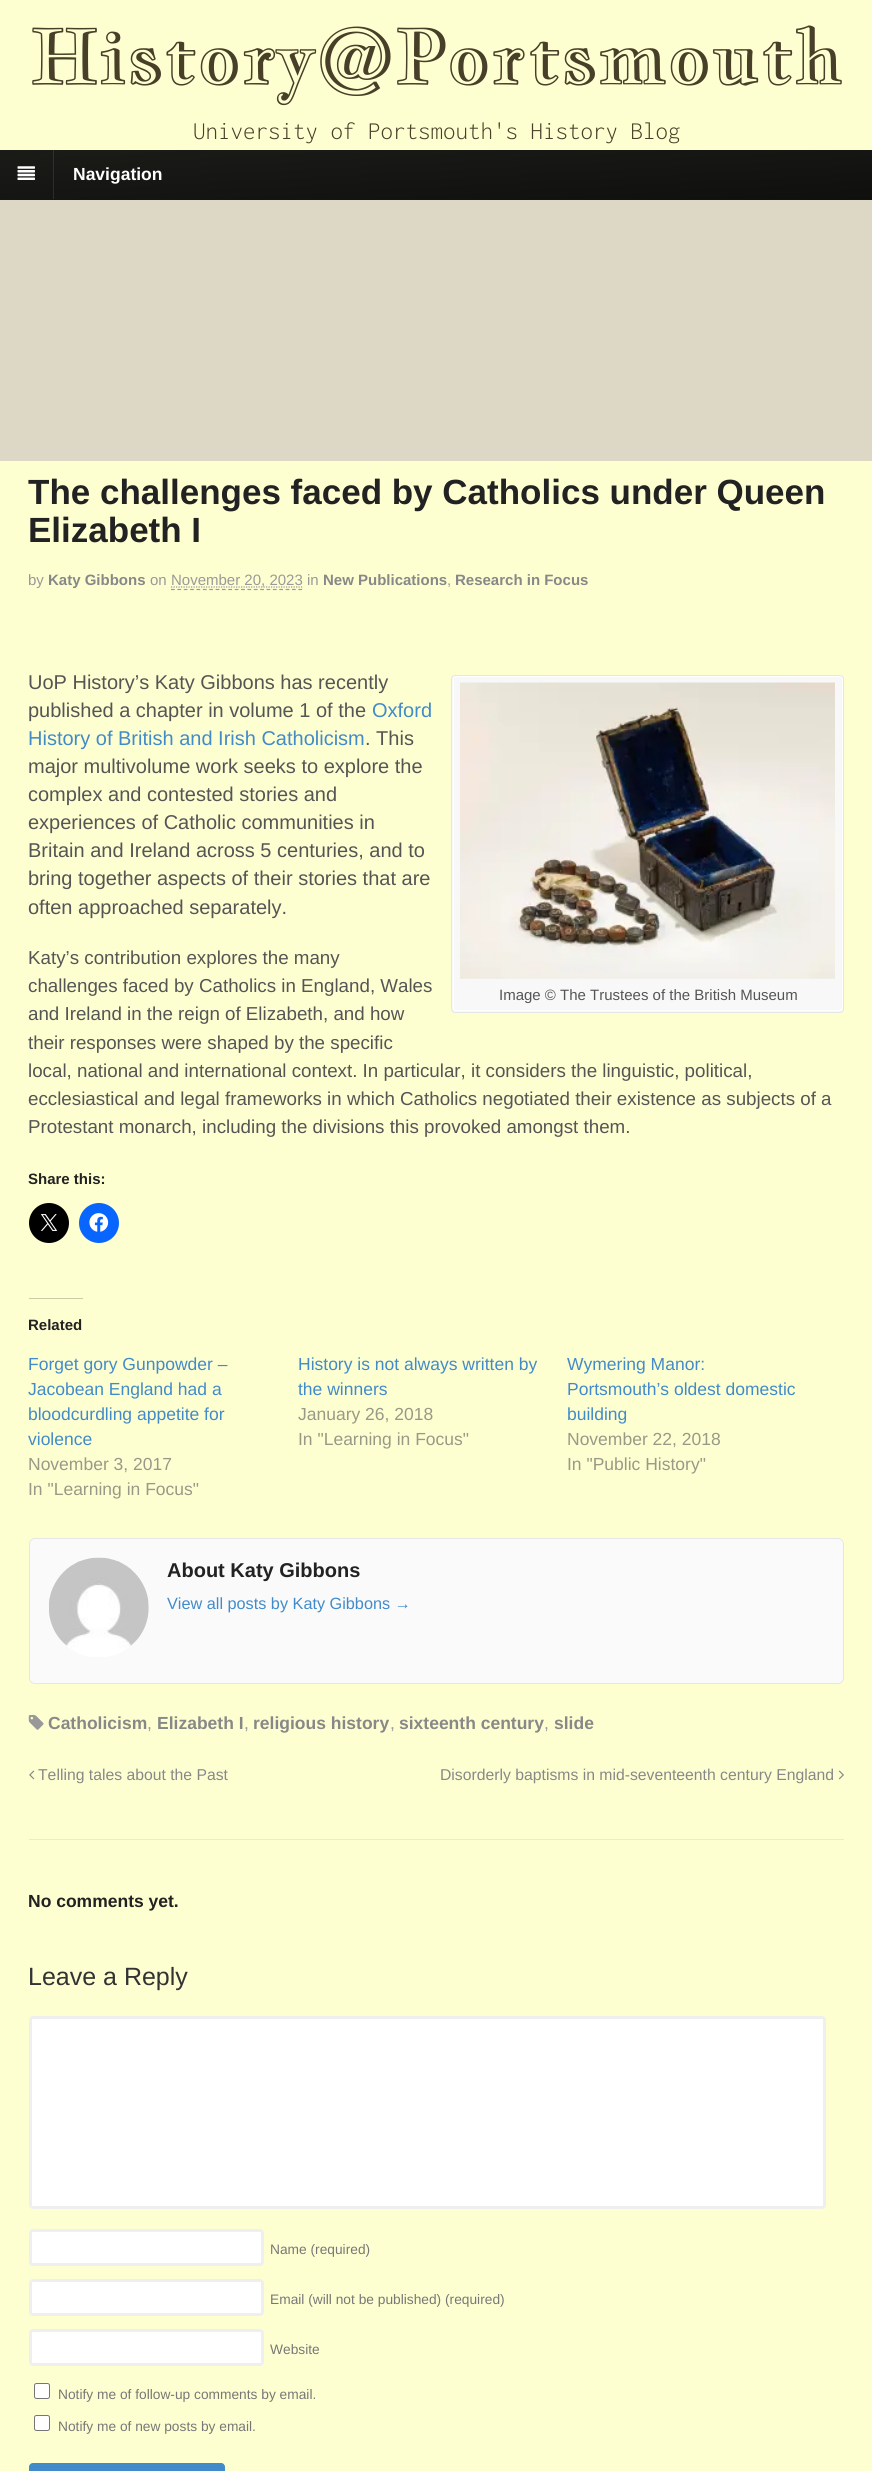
import math
import cairocffi as cairo

surface = cairo.ImageSurface(cairo.FORMAT_RGB24, 872, 2471)
ctx = cairo.Context(surface)
options = cairo.FontOptions()
options.set_hint_metrics(cairo.HINT_METRICS_OFF)
options.set_hint_style(cairo.HINT_STYLE_NONE)
ctx.set_font_options(options)
ctx.set_miter_limit(4)


def rgb(r, g, b):
    ctx.set_source_rgb(r / 255, g / 255, b / 255)


def face(family, size, italic, bold):
    ctx.select_font_face(family, cairo.FONT_SLANT_ITALIC if italic else cairo.FONT_SLANT_NORMAL, cairo.FONT_WEIGHT_BOLD if bold else cairo.FONT_WEIGHT_NORMAL)
    ctx.set_font_size(size)


def label(x, y, s):
    ctx.move_to(x, y)
    ctx.show_text(s)


def rect(x, y, w, h):
    ctx.rectangle(x, y, w, h)
    ctx.fill()


def rrect(x, y, w, h, r):
    ctx.new_sub_path()
    for i, (u, v) in enumerate([(x + w - r, y + h - r), (x + r, y + h - r), (x + r, y + r), (x + w - r, y + r)]):
        ctx.arc(u, v, r, i * math.pi / 2, (i + 1) * math.pi / 2)
    ctx.close_path()


def image(path, x, y, w, h):
    ctx.save()
    ctx.set_source_surface(cairo.ImageSurface.create_from_png(path), x, y)
    ctx.rectangle(x, y, w, h)
    ctx.fill()
    ctx.restore()


rgb(221, 216, 197)
ctx.paint()
rgb(254, 255, 209)
rect(0, 0, 872, 150)
face('Jacques Francois Shadow', 75, 0, 0)
rgb(72, 63, 40)
label(30, 83, 'History@Portsmouth')
face('Inconsolata Light', 25, 0, 0)
label(193, 139, 'University of Portsmouth\'s History Blog')
gradient = cairo.LinearGradient(434, 126, 439, 223)
gradient.add_color_stop_rgba(0, 0.106, 0.106, 0.094, 1)
gradient.add_color_stop_rgba(1, 0.059, 0.059, 0.055, 1)
ctx.set_source(gradient)
rect(0, 150, 872, 49)
gradient = cairo.LinearGradient(434, 126, 439, 223)
gradient.add_color_stop_rgba(0, 0.094, 0.094, 0.086, 1)
gradient.add_color_stop_rgba(1, 0.055, 0.055, 0.051, 1)
ctx.set_source(gradient)
rect(54, 155, 1, 38)
gradient = cairo.LinearGradient(434, 126, 439, 223)
gradient.add_color_stop_rgba(0, 0.196, 0.196, 0.184, 1)
gradient.add_color_stop_rgba(1, 0.153, 0.153, 0.149, 1)
ctx.set_source(gradient)
rect(53, 150, 1, 49)
gradient = cairo.LinearGradient(434, 175, 439, 272)
gradient.add_color_stop_rgba(0, 0.086, 0.086, 0.075, 1)
gradient.add_color_stop_rgba(1, 0.047, 0.047, 0.043, 1)
ctx.set_source(gradient)
rect(0, 199, 872, 1)
image('image0.png', 17, 166, 18, 14)
face('Liberation Sans', 17.5, 0, 1)
rgb(255, 255, 255)
label(73, 180, 'Navigation')
rgb(254, 255, 209)
rect(0, 461, 872, 2010)
face('Liberation Sans', 35, 0, 1)
rgb(34, 34, 34)
label(28, 504, 'The challenges faced by Catholics under Queen')
label(28, 542, 'Elizabeth I')
face('Liberation Sans', 15, 0, 0)
rgb(153, 153, 153)
label(28, 585, 'by')
face('Liberation Sans', 15, 0, 1)
rgb(136, 136, 136)
label(48, 585, 'Katy Gibbons')
face('Liberation Sans', 15, 0, 0)
rgb(153, 153, 153)
label(150, 585, 'on')
ctx.new_path()
ctx.move_to(171, 587)
ctx.line_to(302.5, 587)
ctx.set_line_width(1.2)
ctx.set_dash([1.25, 1.25])
ctx.stroke()
label(171, 585, 'November 20, 2023 in')
ctx.new_path()
ctx.move_to(171, 589.5)
ctx.line_to(302.5, 589.5)
ctx.set_dash([3.75, 2.62])
ctx.stroke()
face('Liberation Sans', 15, 0, 1)
rgb(136, 136, 136)
label(323, 585, 'New Publications')
face('Liberation Sans', 15, 0, 0)
rgb(153, 153, 153)
label(447, 585, ',')
face('Liberation Sans', 15, 0, 1)
rgb(136, 136, 136)
label(455, 585, 'Research in Focus')
face('Liberation Sans', 20, 0, 0)
rgb(85, 85, 85)
label(28, 689, 'UoP History’s Katy Gibbons has recently')
label(28, 717, 'published a chapter in volume 1 of the')
rgb(66, 139, 202)
label(372, 717, 'Oxford')
label(28, 745, 'History of British and Irish Catholicism')
rgb(85, 85, 85)
label(365, 745, '. This')
label(28, 773, 'major multivolume work seeks to explore the')
label(28, 801, 'complex and contested stories and')
label(28, 829, 'experiences of Catholic communities in')
label(28, 857, 'Britain and Ireland across 5 centuries, and to')
label(28, 885, 'bring together aspects of their stories that are')
label(28, 914, 'often approached separately.')
face('Liberation Sans', 18.75, 0, 0)
label(28, 964, 'Katy’s contribution explores the many')
label(28, 992, 'challenges faced by Catholics in England, Wales')
label(28, 1020, 'and Ireland in the reign of Elizabeth, and how')
label(28, 1049, 'their responses were shaped by the specific')
label(28, 1077, 'local, national and international context. In particular, it considers the linguistic, political,')
label(28, 1105, 'ecclesiastical and legal frameworks in which Catholics negotiated their existence as subjects of a')
label(28, 1133, 'Protestant monarch, including the divisions this provoked amongst them.')
rgb(248, 248, 248)
rrect(451, 675, 393, 338, 4)
ctx.fill()
rrect(453.5, 676.5, 389, 334, 2)
rgb(255, 255, 255)
ctx.set_line_width(1)
ctx.set_dash([])
ctx.stroke()
rrect(451.5, 675.5, 392, 337, 3.5)
rgb(230, 230, 230)
ctx.stroke()
image('image1.png', 460, 682, 375, 297)
face('Liberation Sans', 15, 0, 0)
rgb(85, 85, 85)
label(499, 1000, 'Image © The Trustees of the British Museum')
face('Liberation Sans', 15, 0, 1)
rgb(34, 34, 34)
label(28, 1184, 'Share this:')
rgb(0, 0, 0)
ctx.new_path()
ctx.arc(49, 1223, 20, 0, 2 * math.pi)
ctx.fill()
image('image2.png', 40, 1214, 18, 17)
rgb(8, 102, 255)
ctx.arc(99, 1223, 20, 0, 2 * math.pi)
ctx.fill()
image('image3.png', 89, 1213, 20, 19)
rgb(203, 204, 167)
rect(29, 1298, 54, 1)
rgb(34, 34, 34)
label(28, 1330, 'Related')
face('Liberation Sans', 17.5, 0, 0)
rgb(66, 139, 202)
label(28, 1370, 'Forget gory Gunpowder –')
label(28, 1395, 'Jacobean England had a')
label(28, 1420, 'bloodcurdling appetite for')
label(28, 1445, 'violence')
rgb(153, 153, 135)
label(28, 1470, 'November 3, 2017')
label(28, 1495, 'In "Learning in Focus"')
rgb(66, 139, 202)
label(298, 1370, 'History is not always written by')
label(298, 1395, 'the winners')
rgb(153, 153, 135)
label(298, 1420, 'January 26, 2018')
label(298, 1445, 'In "Learning in Focus"')
rgb(66, 139, 202)
label(567, 1370, 'Wymering Manor:')
label(567, 1395, 'Portsmouth’s oldest domestic')
label(567, 1420, 'building')
rgb(153, 153, 135)
label(567, 1445, 'November 22, 2018')
label(567, 1470, 'In "Public History"')
rgb(250, 250, 250)
rrect(29.5, 1538.5, 814, 145, 5.5)
ctx.fill_preserve()
rgb(230, 230, 230)
ctx.stroke()
image('image4.png', 49, 1557, 100, 100)
face('Liberation Sans', 20, 0, 1)
rgb(34, 34, 34)
label(167, 1577, 'About Katy Gibbons')
face('Liberation Sans', 16.25, 0, 0)
rgb(66, 139, 202)
label(167, 1609, 'View all posts by Katy Gibbons →')
image('image5.png', 28, 1715, 16, 15)
face('Liberation Sans', 17.5, 0, 1)
rgb(136, 136, 136)
label(48, 1729, 'Catholicism')
face('Liberation Sans', 17.5, 0, 0)
rgb(153, 153, 153)
label(147, 1729, ',')
face('Liberation Sans', 17.5, 0, 1)
rgb(136, 136, 136)
label(157, 1729, 'Elizabeth I')
face('Liberation Sans', 17.5, 0, 0)
rgb(153, 153, 153)
label(244, 1729, ',')
face('Liberation Sans', 17.5, 0, 1)
rgb(136, 136, 136)
label(253, 1729, 'religious history')
face('Liberation Sans', 17.5, 0, 0)
rgb(153, 153, 153)
label(390, 1729, ',')
face('Liberation Sans', 17.5, 0, 1)
rgb(136, 136, 136)
label(399, 1729, 'sixteenth century')
face('Liberation Sans', 17.5, 0, 0)
rgb(153, 153, 153)
label(544, 1729, ',')
face('Liberation Sans', 17.5, 0, 1)
rgb(136, 136, 136)
label(554, 1729, 'slide')
image('image6.png', 29, 1770, 6, 10)
face('Liberation Sans', 15.75, 0, 0)
label(38, 1780, 'Telling tales about the Past')
label(440, 1780, 'Disorderly baptisms in mid-seventeenth century England')
image('image7.png', 838, 1770, 6, 10)
rgb(236, 237, 194)
rect(29, 1839, 815, 1)
face('Liberation Sans', 17.5, 0, 1)
rgb(34, 34, 34)
label(28, 1907, 'No comments yet.')
face('Liberation Sans', 25, 0, 0)
rgb(51, 51, 51)
label(28, 1985, 'Leave a Reply')
rgb(255, 255, 255)
rrect(30.5, 2017.5, 794, 190, 2.5)
ctx.fill_preserve()
rgb(239, 239, 239)
ctx.set_line_width(3)
ctx.stroke()
rgb(255, 255, 255)
rrect(30.5, 2230.5, 232, 34, 2.5)
ctx.fill_preserve()
rgb(239, 239, 239)
ctx.stroke()
face('Liberation Sans', 13.75, 0, 0)
rgb(119, 119, 119)
label(270, 2254, 'Name (required)')
rgb(255, 255, 255)
rrect(30.5, 2280.5, 232, 34, 2.5)
ctx.fill_preserve()
rgb(239, 239, 239)
ctx.stroke()
rgb(119, 119, 119)
label(270, 2304, 'Email (will not be published) (required)')
rgb(255, 255, 255)
rrect(30.5, 2330.5, 232, 34, 2.5)
ctx.fill_preserve()
rgb(239, 239, 239)
ctx.stroke()
rgb(119, 119, 119)
label(270, 2354, 'Website')
rgb(255, 255, 255)
rrect(34.5, 2383.5, 15, 15, 2)
ctx.fill_preserve()
rgb(118, 118, 118)
ctx.set_line_width(1)
ctx.stroke()
rgb(119, 119, 119)
label(58, 2399, 'Notify me of follow-up comments by email.')
rgb(255, 255, 255)
rrect(34.5, 2415.5, 15, 15, 2)
ctx.fill_preserve()
rgb(118, 118, 118)
ctx.stroke()
rgb(119, 119, 119)
label(58, 2431, 'Notify me of new posts by email.')
rgb(66, 139, 202)
rrect(29, 2463, 196, 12, 4)
ctx.fill()
surface.write_to_png('render.png')
